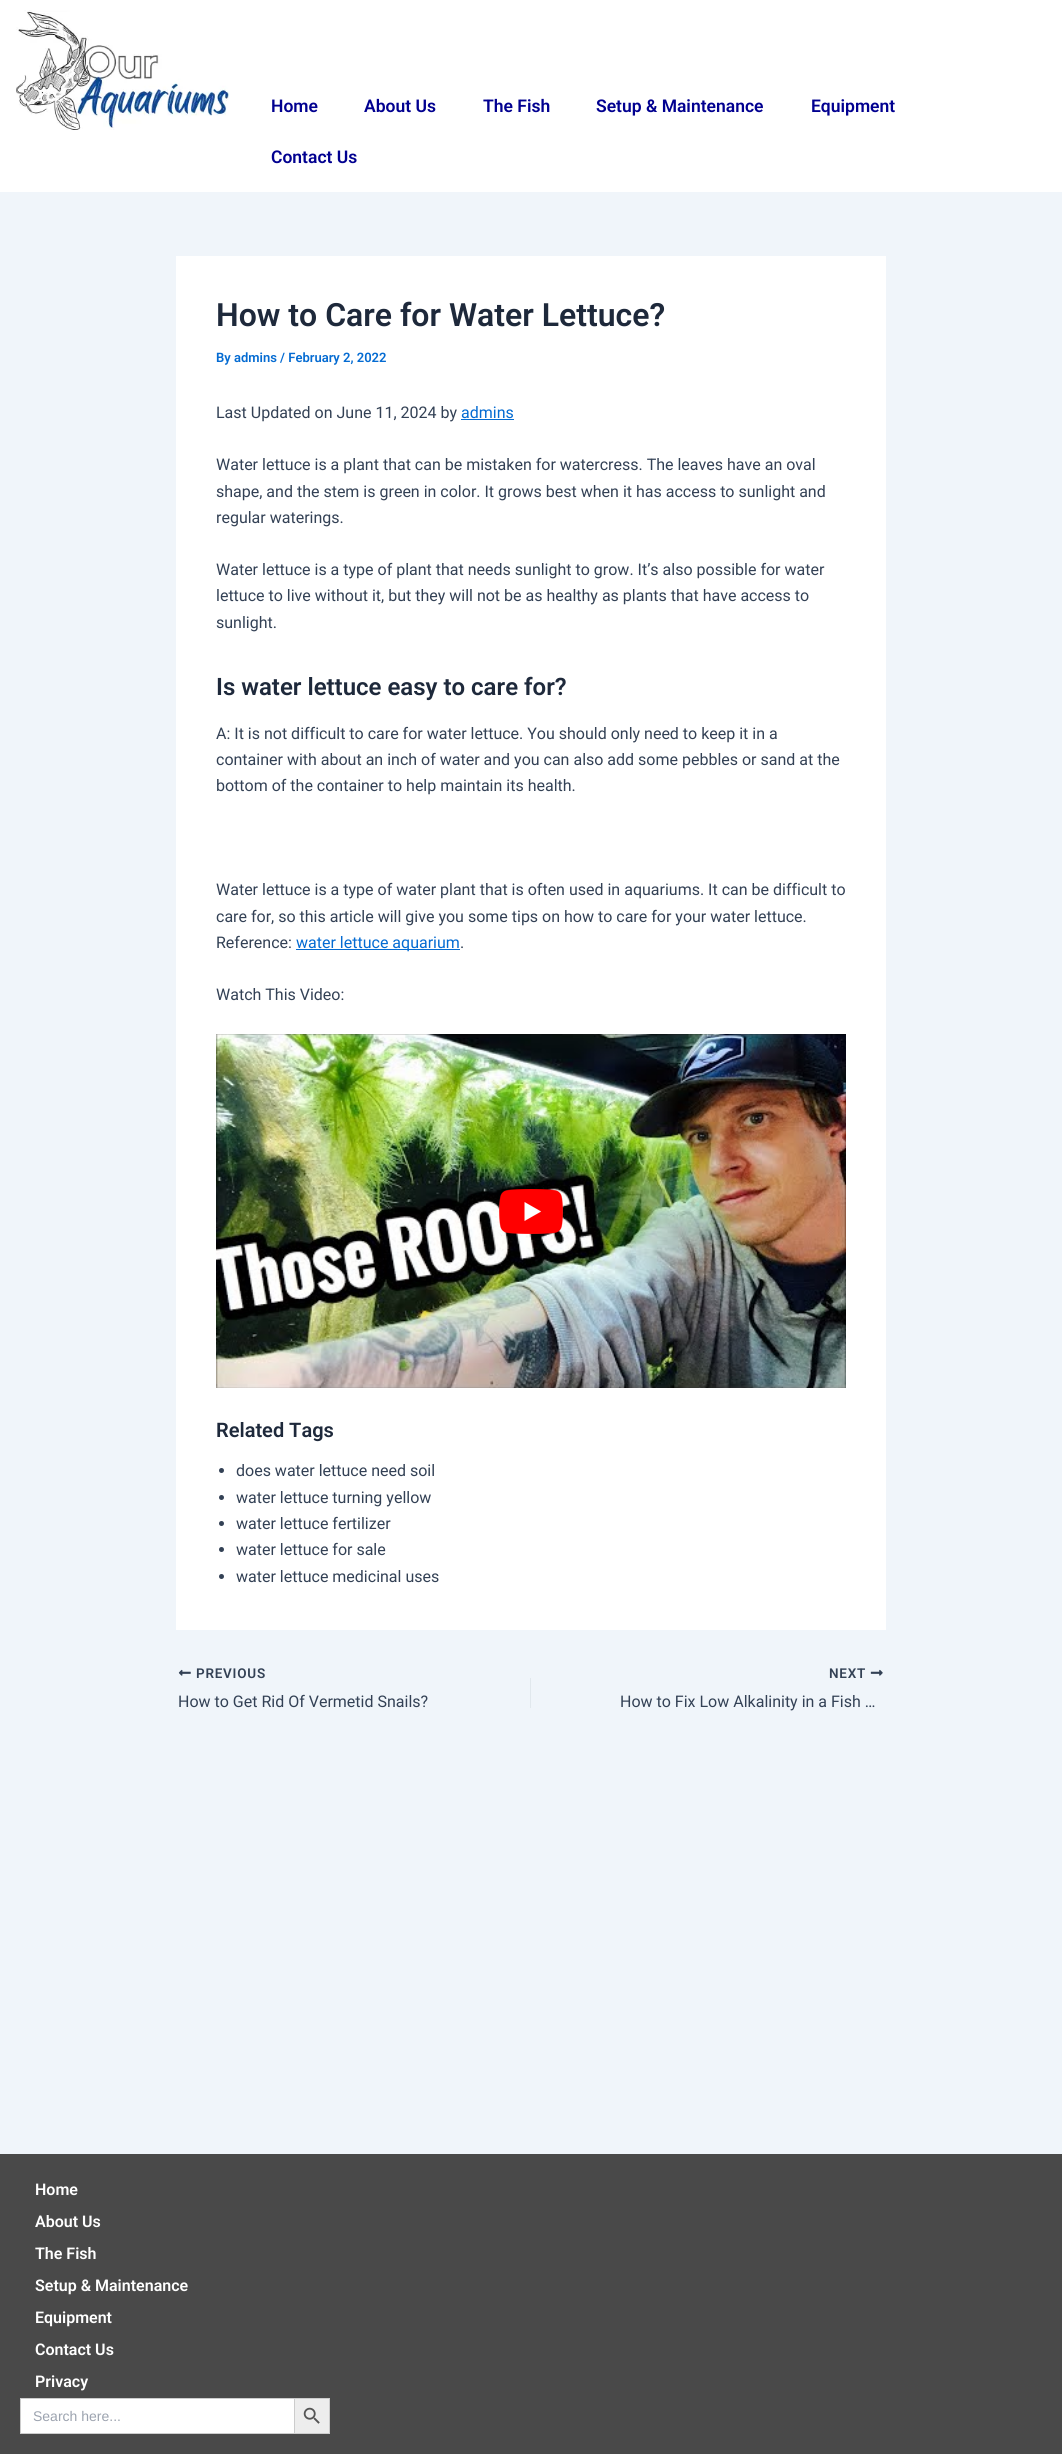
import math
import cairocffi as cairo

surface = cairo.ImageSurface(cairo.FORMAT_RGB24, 1062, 2454)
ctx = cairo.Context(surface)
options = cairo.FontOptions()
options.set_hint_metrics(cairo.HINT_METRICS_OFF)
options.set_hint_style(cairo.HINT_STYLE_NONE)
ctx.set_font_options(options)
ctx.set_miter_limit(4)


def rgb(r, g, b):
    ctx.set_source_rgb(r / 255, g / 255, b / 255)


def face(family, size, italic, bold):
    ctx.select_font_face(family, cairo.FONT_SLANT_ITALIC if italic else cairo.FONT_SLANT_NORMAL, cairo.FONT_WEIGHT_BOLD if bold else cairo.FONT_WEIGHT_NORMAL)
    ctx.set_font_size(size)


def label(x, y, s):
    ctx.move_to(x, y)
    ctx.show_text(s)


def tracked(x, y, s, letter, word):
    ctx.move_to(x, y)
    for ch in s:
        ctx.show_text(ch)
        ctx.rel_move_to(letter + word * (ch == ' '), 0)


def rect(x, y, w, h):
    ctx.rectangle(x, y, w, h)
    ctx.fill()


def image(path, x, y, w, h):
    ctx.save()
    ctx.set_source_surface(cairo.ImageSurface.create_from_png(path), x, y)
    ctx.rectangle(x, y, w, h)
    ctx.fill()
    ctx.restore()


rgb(240, 245, 250)
ctx.paint()
rgb(255, 255, 255)
rect(0, 0, 1062, 192)
image('image0.png', 16, 10, 213, 120)
face('Roboto SemiBold', 17.5, 0, 0)
rgb(1, 0, 144)
label(271, 112, 'Home')
label(364, 112, 'About Us')
label(483, 112, 'The Fish')
label(596, 112, 'Setup & Maintenance')
label(811, 112, 'Equipment')
label(271, 163, 'Contact Us')
rgb(255, 255, 255)
rect(176, 256, 710, 1374)
face('Roboto SemiBold', 32, 0, 0)
rgb(30, 41, 59)
label(216, 326, 'How to Care for Water Lettuce?')
face('Roboto SemiBold', 13, 0, 0)
rgb(4, 107, 210)
label(216, 362, 'By admins / February 2, 2022')
face('Roboto', 16, 0, 0)
rgb(51, 65, 85)
label(216, 418, 'Last Updated on June 11, 2024 by')
rgb(4, 107, 210)
label(461, 418, 'admins')
rect(461, 419, 53, 1)
rgb(51, 65, 85)
label(216, 470, 'Water lettuce is a plant that can be mistaken for watercress. The leaves have an oval')
label(216, 497, 'shape, and the stem is green in color. It grows best when it has access to sunlight and')
label(216, 523, 'regular waterings.')
label(216, 575, 'Water lettuce is a type of plant that needs sunlight to grow. It’s also possible for water')
label(216, 601, 'lettuce to live without it, but they will not be as healthy as plants that have access to')
label(216, 628, 'sunlight.')
face('Roboto SemiBold', 24, 0, 0)
rgb(30, 41, 59)
label(216, 695, 'Is water lettuce easy to care for?')
face('Roboto', 16, 0, 0)
rgb(51, 65, 85)
label(216, 739, 'A: It is not difficult to care for water lettuce. You should only need to keep it in a')
label(216, 765, 'container with about an inch of water and you can also add some pebbles or sand at the')
label(216, 791, 'bottom of the container to help maintain its health.')
label(216, 895, 'Water lettuce is a type of water plant that is often used in aquariums. It can be difficult to')
label(216, 922, 'care for, so this article will give you some tips on how to care for your water lettuce.')
label(216, 948, 'Reference:')
rgb(4, 107, 210)
rect(296, 949, 164, 1)
label(296, 948, 'water lettuce aquarium')
rgb(51, 65, 85)
label(460, 948, '.')
label(216, 1000, 'Watch This Video:')
image('image1.png', 216, 1034, 630, 354)
image('image2.png', 499, 1189, 64, 45)
face('Roboto SemiBold', 20, 0, 0)
rgb(30, 41, 59)
label(216, 1437, 'Related Tags')
rgb(51, 65, 85)
ctx.new_path()
ctx.arc(221.5, 1470.5, 2.5, 0, 2 * math.pi)
ctx.fill()
face('Roboto', 16, 0, 0)
label(236, 1476, 'does water lettuce need soil')
ctx.new_path()
ctx.arc(221.5, 1497.5, 2.5, 0, 2 * math.pi)
ctx.fill()
label(236, 1503, 'water lettuce turning yellow')
ctx.new_path()
ctx.arc(221.5, 1523.5, 2.5, 0, 2 * math.pi)
ctx.fill()
label(236, 1529, 'water lettuce fertilizer')
ctx.new_path()
ctx.arc(221.5, 1549.5, 2.5, 0, 2 * math.pi)
ctx.fill()
label(236, 1555, 'water lettuce for sale')
ctx.new_path()
ctx.arc(221.5, 1576.5, 2.5, 0, 2 * math.pi)
ctx.fill()
label(236, 1582, 'water lettuce medicinal uses')
image('image3.png', 178, 1669, 13, 7)
face('Roboto SemiBold', 13.5, 0, 0)
tracked(196, 1678, 'PREVIOUS', 0.75, 0)
face('Roboto', 16, 0, 0)
label(178, 1707, 'How to Get Rid Of Vermetid Snails?')
rgb(225, 232, 237)
rect(530, 1678, 1, 30)
face('Roboto SemiBold', 13.5, 0, 0)
rgb(51, 65, 85)
tracked(829, 1678, 'NEXT', 0.75, 0)
image('image4.png', 870, 1669, 13, 7)
face('Roboto', 16, 0, 0)
label(620, 1707, 'How to Fix Low Alkalinity in a Fish …')
rgb(73, 73, 73)
rect(0, 2154, 1062, 300)
face('Roboto SemiBold', 16, 0, 0)
rgb(255, 255, 255)
label(35, 2195, 'Home')
label(35, 2227, 'About Us')
label(35, 2259, 'The Fish')
label(35, 2291, 'Setup & Maintenance')
label(35, 2323, 'Equipment')
label(35, 2355, 'Contact Us')
label(35, 2387, 'Privacy')
rect(21, 2399, 273, 34)
rgb(204, 204, 204)
rect(20, 2398, 274, 1)
rect(20, 2433, 274, 1)
rect(20, 2398, 1, 36)
face('Liberation Sans', 14, 0, 0)
rgb(156, 163, 175)
label(33, 2421, 'Search here...')
rgb(237, 237, 237)
ctx.rectangle(294.5, 2398.5, 35, 35)
ctx.fill_preserve()
rgb(204, 204, 204)
ctx.set_line_width(1)
ctx.stroke()
image('image5.png', 303, 2407, 17, 17)
surface.write_to_png('render.png')
